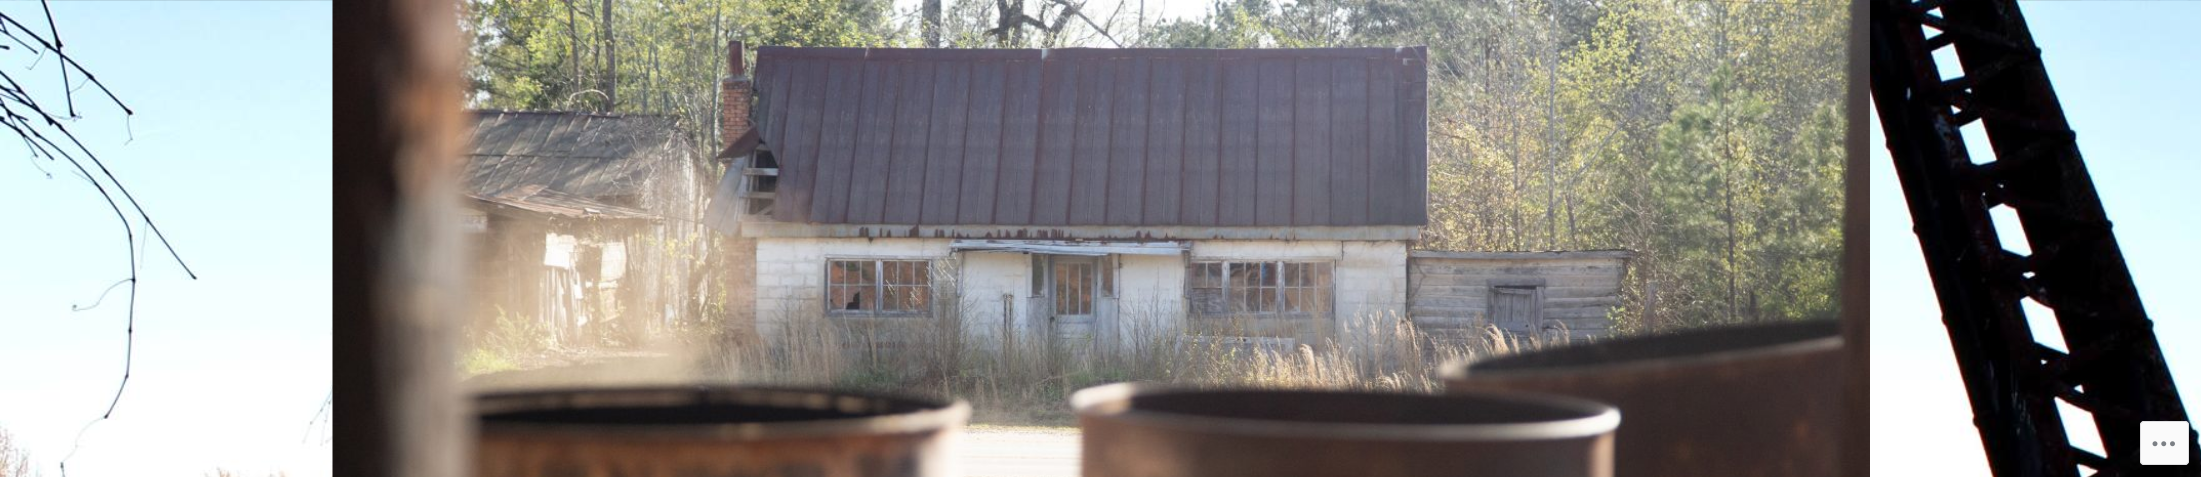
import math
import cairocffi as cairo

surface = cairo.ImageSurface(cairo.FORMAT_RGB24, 2201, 477)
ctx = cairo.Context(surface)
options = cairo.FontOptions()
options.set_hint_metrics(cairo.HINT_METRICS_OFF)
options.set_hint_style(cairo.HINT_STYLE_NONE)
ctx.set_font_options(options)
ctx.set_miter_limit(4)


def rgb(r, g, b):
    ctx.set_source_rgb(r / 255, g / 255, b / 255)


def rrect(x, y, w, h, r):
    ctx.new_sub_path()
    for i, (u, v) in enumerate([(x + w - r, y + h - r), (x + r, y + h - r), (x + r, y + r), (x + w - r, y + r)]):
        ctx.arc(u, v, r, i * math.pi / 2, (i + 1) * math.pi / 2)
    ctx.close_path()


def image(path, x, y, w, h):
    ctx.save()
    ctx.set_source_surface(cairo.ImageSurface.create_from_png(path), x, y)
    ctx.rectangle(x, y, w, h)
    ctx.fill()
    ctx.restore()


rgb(255, 255, 255)
ctx.paint()
image('image0.png', 0, 0, 2201, 477)
image('image1.png', 332, 0, 1538, 477)
ctx.set_source_rgba(1, 1, 1, 0.98)
rrect(2140, 421, 49, 44, 4)
ctx.fill()
rrect(2140.5, 421.5, 48, 43, 3.5)
ctx.set_source_rgba(0.863, 0.863, 0.871, 0.98)
ctx.set_line_width(1)
ctx.stroke()
image('image2.png', 2152, 441, 23, 6)
surface.write_to_png('render.png')
